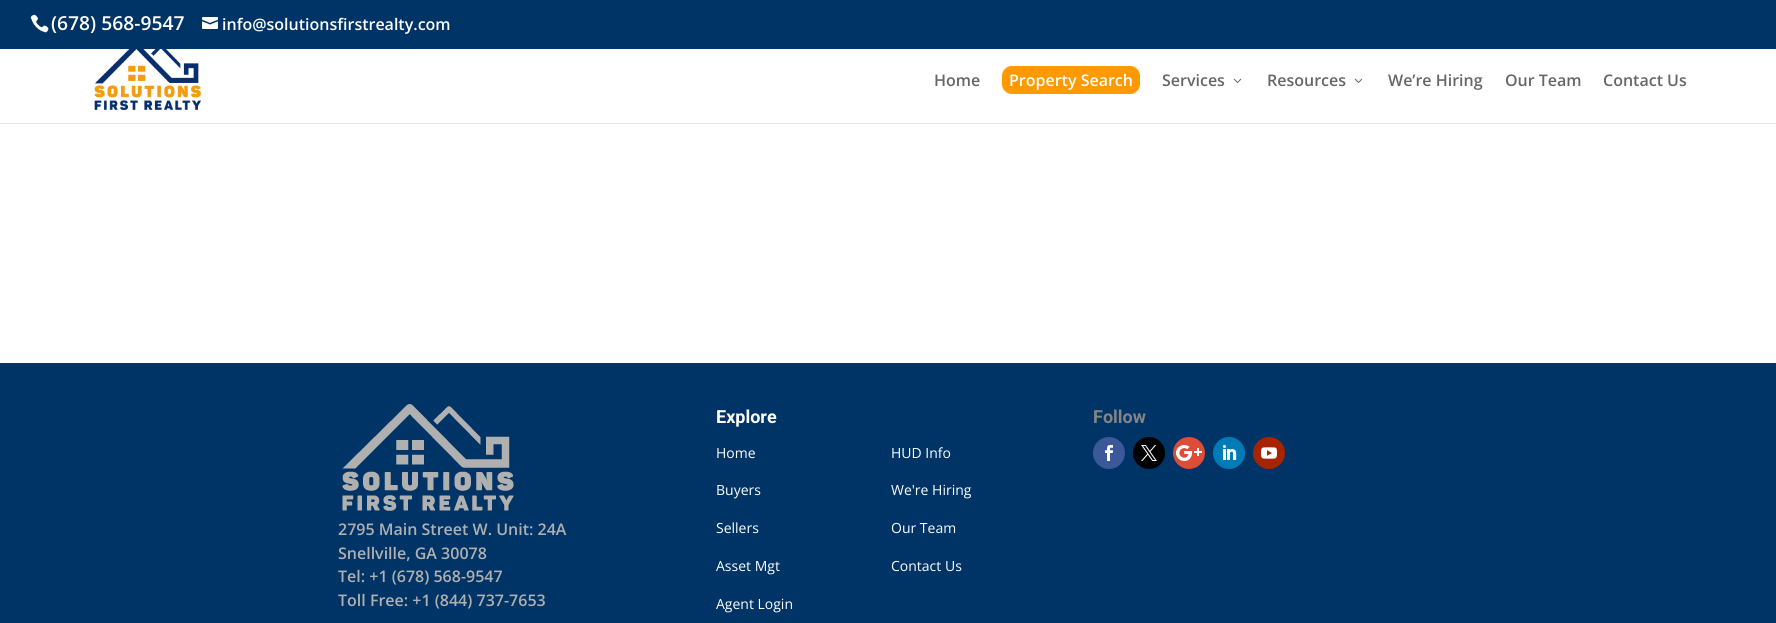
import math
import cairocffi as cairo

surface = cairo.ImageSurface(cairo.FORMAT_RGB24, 1776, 623)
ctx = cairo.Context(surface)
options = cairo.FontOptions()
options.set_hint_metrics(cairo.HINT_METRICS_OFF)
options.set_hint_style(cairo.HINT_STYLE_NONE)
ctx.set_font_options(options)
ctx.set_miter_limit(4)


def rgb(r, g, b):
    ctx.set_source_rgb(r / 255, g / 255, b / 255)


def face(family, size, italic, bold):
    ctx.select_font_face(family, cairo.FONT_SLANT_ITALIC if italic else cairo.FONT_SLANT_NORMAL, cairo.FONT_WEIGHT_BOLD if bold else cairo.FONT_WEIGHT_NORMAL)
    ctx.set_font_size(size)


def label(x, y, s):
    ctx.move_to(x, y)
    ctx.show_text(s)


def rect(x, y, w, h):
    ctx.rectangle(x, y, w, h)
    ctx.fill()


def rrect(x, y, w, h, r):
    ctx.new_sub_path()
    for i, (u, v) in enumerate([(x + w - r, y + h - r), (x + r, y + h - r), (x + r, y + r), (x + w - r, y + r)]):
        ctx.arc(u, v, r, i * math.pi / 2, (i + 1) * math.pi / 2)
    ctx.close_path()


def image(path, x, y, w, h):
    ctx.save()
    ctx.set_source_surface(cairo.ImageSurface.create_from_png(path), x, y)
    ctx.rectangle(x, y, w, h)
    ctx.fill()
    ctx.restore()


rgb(255, 255, 255)
ctx.paint()
rgb(0, 51, 102)
rect(0, 0, 1776, 49)
image('image0.png', 30, 14, 19, 19)
face('Open Sans SemiBold', 19.25, 0, 0)
rgb(255, 255, 255)
label(51, 30, '(678) 568-9547')
image('image1.png', 202, 17, 16, 12)
face('Open Sans SemiBold', 16, 0, 0)
label(222, 30, 'info@solutionsfirstrealty.com')
rgb(230, 230, 230)
rect(0, 123, 1776, 1)
image('image2.png', 94, 49, 107, 61)
rgb(102, 102, 102)
label(934, 86, 'Home')
rgb(255, 153, 0)
rrect(1002.5, 66.5, 137, 27, 9.5)
ctx.fill_preserve()
ctx.set_line_width(1)
ctx.stroke()
rgb(255, 255, 255)
label(1009, 86, 'Property Search')
rgb(102, 102, 102)
label(1162, 86, 'Services')
image('image3.png', 1233, 78, 9, 5)
label(1267, 86, 'Resources')
image('image3.png', 1354, 78, 9, 5)
label(1388, 86, 'We’re Hiring')
label(1505, 86, 'Our Team')
label(1603, 86, 'Contact Us')
rgb(0, 51, 102)
rect(0, 363, 1776, 260)
face('Roboto', 18, 0, 1)
rgb(255, 255, 255)
label(716, 423, 'Explore')
face('Open Sans', 14, 0, 0)
label(716, 458, 'Home')
label(716, 495, 'Buyers')
label(716, 533, 'Sellers')
label(716, 571, 'Asset Mgt')
label(716, 609, 'Agent Login')
label(891, 458, 'HUD Info')
label(891, 495, 'We\'re Hiring')
label(891, 533, 'Our Team')
label(891, 571, 'Contact Us')
face('Roboto', 18, 0, 1)
rgb(132, 132, 132)
label(1093, 423, 'Follow')
rgb(59, 89, 152)
ctx.new_path()
ctx.arc(1109, 453, 16, 0, 2 * math.pi)
ctx.fill()
image('image4.png', 1105, 445, 8, 16)
rgb(0, 0, 0)
ctx.arc(1149, 453, 16, 0, 2 * math.pi)
ctx.fill()
image('image5.png', 1141, 445, 16, 16)
rgb(221, 75, 57)
ctx.arc(1189, 453, 16, 0, 2 * math.pi)
ctx.fill()
image('image6.png', 1176, 445, 26, 16)
rgb(0, 123, 182)
ctx.arc(1229, 453, 16, 0, 2 * math.pi)
ctx.fill()
image('image7.png', 1223, 445, 14, 15)
rgb(168, 36, 0)
ctx.arc(1269, 453, 16, 0, 2 * math.pi)
ctx.fill()
image('image8.png', 1261, 447, 16, 12)
image('image9.png', 342, 404, 172, 107)
face('Open Sans SemiBold', 16, 0, 0)
rgb(176, 176, 176)
label(338, 535, '2795 Main Street W. Unit: 24A')
label(338, 559, 'Snellville, GA 30078')
label(338, 582, 'Tel: +1 (678) 568-9547')
label(338, 606, 'Toll Free: +1 (844) 737-7653')
surface.write_to_png('render.png')
